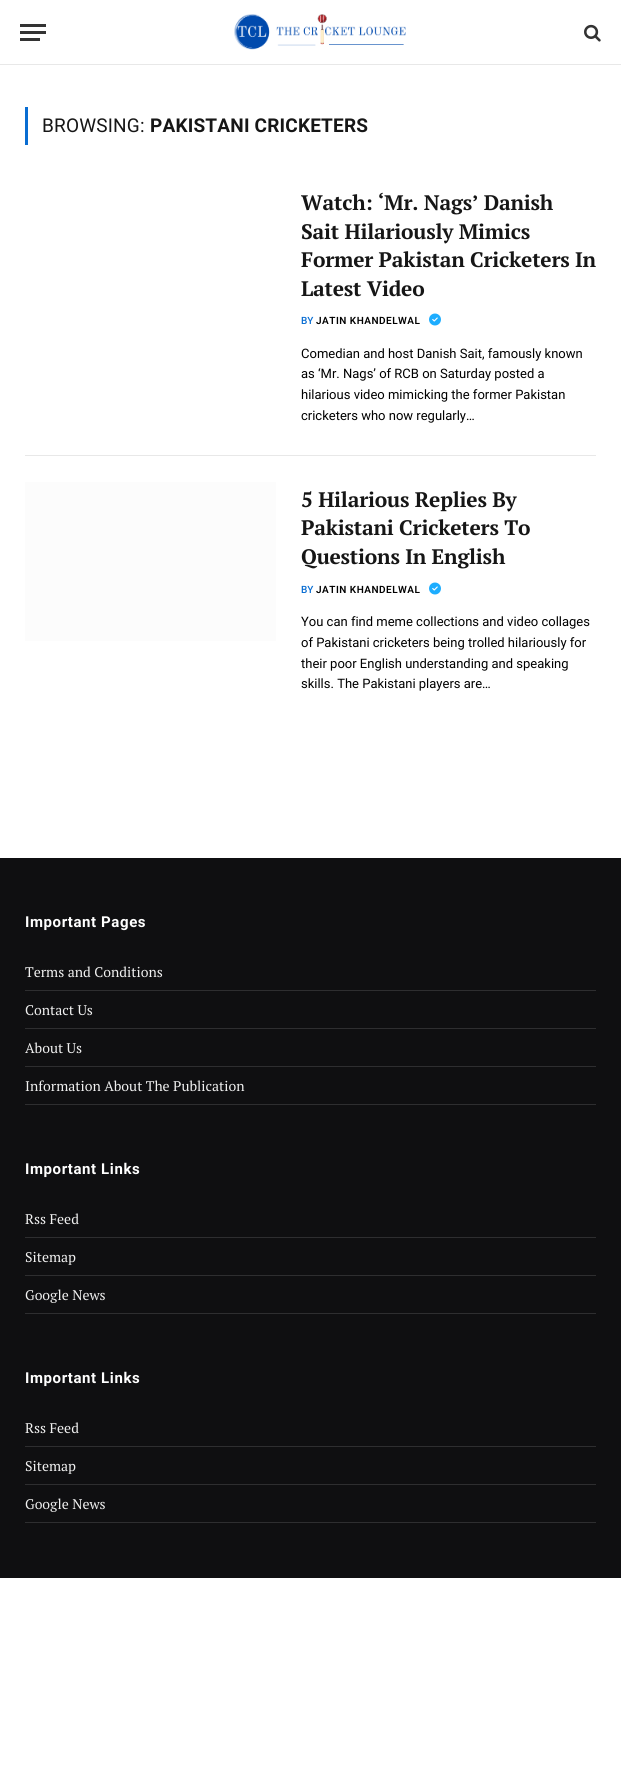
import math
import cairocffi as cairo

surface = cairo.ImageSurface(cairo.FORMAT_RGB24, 621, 1770)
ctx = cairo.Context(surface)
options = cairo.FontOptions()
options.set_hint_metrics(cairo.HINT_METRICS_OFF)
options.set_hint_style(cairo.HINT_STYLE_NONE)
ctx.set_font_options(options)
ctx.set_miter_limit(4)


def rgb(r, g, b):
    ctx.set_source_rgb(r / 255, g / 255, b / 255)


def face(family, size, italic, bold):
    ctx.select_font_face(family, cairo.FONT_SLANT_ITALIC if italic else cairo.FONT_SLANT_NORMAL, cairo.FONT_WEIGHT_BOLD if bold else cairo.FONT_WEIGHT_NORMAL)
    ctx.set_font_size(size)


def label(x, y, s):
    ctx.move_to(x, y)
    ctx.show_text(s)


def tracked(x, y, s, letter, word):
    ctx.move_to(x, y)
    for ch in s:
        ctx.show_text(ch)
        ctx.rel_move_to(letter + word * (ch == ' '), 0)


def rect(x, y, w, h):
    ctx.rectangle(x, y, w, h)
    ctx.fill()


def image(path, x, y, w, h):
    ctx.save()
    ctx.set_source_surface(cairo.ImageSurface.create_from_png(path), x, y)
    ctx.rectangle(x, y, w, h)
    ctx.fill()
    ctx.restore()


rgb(255, 255, 255)
ctx.paint()
rgb(232, 232, 232)
rect(0, 64, 621, 1)
rgb(51, 51, 51)
rect(20, 38, 20, 3)
rect(20, 24, 26, 3)
rect(20, 31, 26, 3)
image('image0.png', 234, 14, 172, 36)
image('image1.png', 584, 24, 17, 18)
rgb(9, 109, 210)
rect(25, 107, 3, 38)
face('Roboto', 19, 0, 0)
rgb(22, 22, 22)
tracked(42, 132, 'BROWSING:', 0.2, 0)
face('Roboto', 19, 0, 1)
tracked(150, 132, 'PAKISTANI CRICKETERS', 0.2, 0)
face('PT Serif', 21, 0, 1)
tracked(301, 210, 'Watch: ‘Mr. Nags’ Danish', -0.2, 0)
tracked(301, 239, 'Sait Hilariously Mimics', -0.2, 0)
tracked(301, 267, 'Former Pakistan Cricketers In', -0.2, 0)
tracked(301, 296, 'Latest Video', -0.2, 0)
face('Roboto Medium', 10, 0, 0)
rgb(9, 109, 210)
label(301, 324, 'BY')
face('Roboto SemiBold', 10, 0, 0)
rgb(0, 0, 0)
tracked(316, 324, 'JATIN KHANDELWAL', 0.5, 0)
image('image2.png', 429, 313, 12, 13)
face('Roboto', 13, 0, 0)
label(301, 358, 'Comedian and host Danish Sait, famously known')
label(301, 378, 'as ‘Mr. Nags’ of RCB on Saturday posted a')
label(301, 399, 'hilarious video mimicking the former Pakistan')
label(301, 420, 'cricketers who now regularly…')
rgb(232, 232, 232)
rect(25, 455, 571, 1)
rgb(252, 252, 252)
rect(25, 482, 251, 159)
face('PT Serif', 21, 0, 1)
rgb(22, 22, 22)
tracked(301, 507, '5 Hilarious Replies By', -0.2, 0)
tracked(301, 535, 'Pakistani Cricketers To', -0.2, 0)
tracked(301, 564, 'Questions In English', -0.2, 0)
face('Roboto Medium', 10, 0, 0)
rgb(9, 109, 210)
label(301, 593, 'BY')
face('Roboto SemiBold', 10, 0, 0)
rgb(0, 0, 0)
tracked(316, 593, 'JATIN KHANDELWAL', 0.5, 0)
image('image2.png', 429, 582, 12, 13)
face('Roboto', 13, 0, 0)
label(301, 626, 'You can find meme collections and video collages')
label(301, 647, 'of Pakistani cricketers being trolled hilariously for')
label(301, 668, 'their poor English understanding and speaking')
label(301, 688, 'skills. The Pakistani players are…')
rgb(15, 15, 17)
rect(0, 858, 621, 720)
face('Roboto', 15, 0, 1)
rgb(255, 255, 255)
tracked(25, 927, 'Important Pages', 0.6, 0)
rgb(46, 46, 48)
rect(25, 990, 571, 1)
face('PT Serif', 14, 0, 0)
rgb(240, 240, 240)
label(25, 977, 'Terms and Conditions')
rgb(46, 46, 48)
rect(25, 1028, 571, 1)
rgb(240, 240, 240)
label(25, 1015, 'Contact Us')
rgb(46, 46, 48)
rect(25, 1066, 571, 1)
rgb(240, 240, 240)
label(25, 1053, 'About Us')
rgb(46, 46, 48)
rect(25, 1104, 571, 1)
rgb(240, 240, 240)
label(25, 1091, 'Information About The Publication')
face('Roboto', 15, 0, 1)
rgb(255, 255, 255)
tracked(25, 1174, 'Important Links', 0.6, 0)
rgb(46, 46, 48)
rect(25, 1237, 571, 1)
face('PT Serif', 14, 0, 0)
rgb(240, 240, 240)
label(25, 1224, 'Rss Feed')
rgb(46, 46, 48)
rect(25, 1275, 571, 1)
rgb(240, 240, 240)
label(25, 1262, 'Sitemap')
rgb(46, 46, 48)
rect(25, 1313, 571, 1)
rgb(240, 240, 240)
label(25, 1300, 'Google News')
face('Roboto', 15, 0, 1)
rgb(255, 255, 255)
tracked(25, 1383, 'Important Links', 0.6, 0)
rgb(46, 46, 48)
rect(25, 1446, 571, 1)
face('PT Serif', 14, 0, 0)
rgb(240, 240, 240)
label(25, 1433, 'Rss Feed')
rgb(46, 46, 48)
rect(25, 1484, 571, 1)
rgb(240, 240, 240)
label(25, 1471, 'Sitemap')
rgb(46, 46, 48)
rect(25, 1522, 571, 1)
rgb(240, 240, 240)
label(25, 1509, 'Google News')
surface.write_to_png('render.png')
